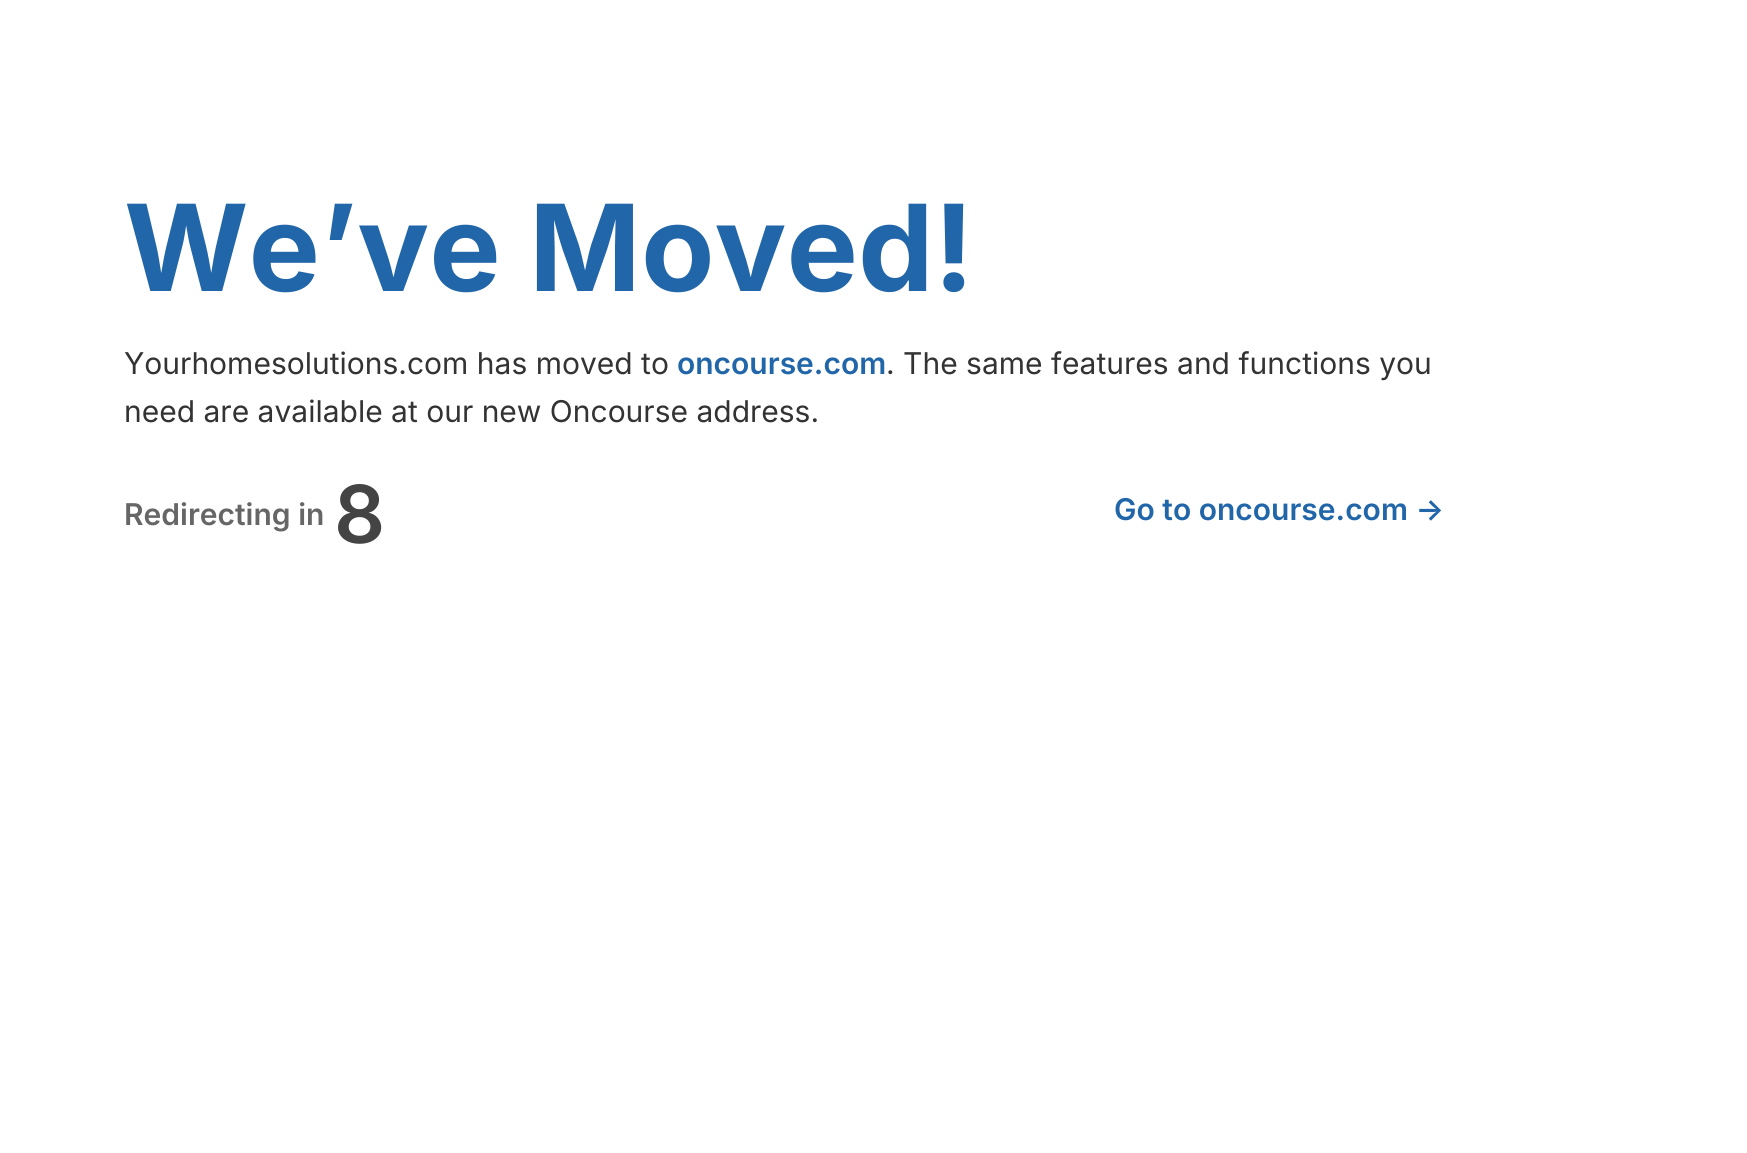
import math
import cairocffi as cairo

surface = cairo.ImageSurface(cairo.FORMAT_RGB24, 1747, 1153)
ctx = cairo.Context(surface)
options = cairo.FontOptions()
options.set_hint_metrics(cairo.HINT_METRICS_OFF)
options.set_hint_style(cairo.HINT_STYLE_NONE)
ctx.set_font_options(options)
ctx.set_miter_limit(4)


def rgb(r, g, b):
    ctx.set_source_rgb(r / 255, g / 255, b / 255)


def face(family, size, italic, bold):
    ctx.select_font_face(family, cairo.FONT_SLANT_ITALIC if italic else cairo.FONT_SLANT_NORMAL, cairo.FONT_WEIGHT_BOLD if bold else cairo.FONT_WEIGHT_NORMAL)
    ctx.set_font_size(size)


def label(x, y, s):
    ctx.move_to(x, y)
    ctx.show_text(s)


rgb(255, 255, 255)
ctx.paint()
face('Inter', 120, 0, 1)
rgb(34, 102, 170)
label(124, 291, 'We’ve Moved!')
face('Inter', 30, 0, 0)
rgb(51, 51, 51)
label(124, 374, 'Yourhomesolutions.com has moved to')
face('Inter SemiBold', 30, 0, 0)
rgb(34, 102, 170)
label(677, 374, 'oncourse.com')
face('Inter', 30, 0, 0)
rgb(51, 51, 51)
label(886, 374, '. The same features and functions you')
label(124, 422, 'need are available at our new Oncourse address.')
face('Inter SemiBold', 30, 0, 0)
rgb(102, 102, 102)
label(124, 525, 'Redirecting in')
face('Inter SemiBold', 80, 0, 0)
rgb(68, 68, 68)
label(334, 543, '8')
face('Inter SemiBold', 30, 0, 0)
rgb(34, 102, 170)
label(1114, 520, 'Go to oncourse.com →')
surface.write_to_png('render.png')
